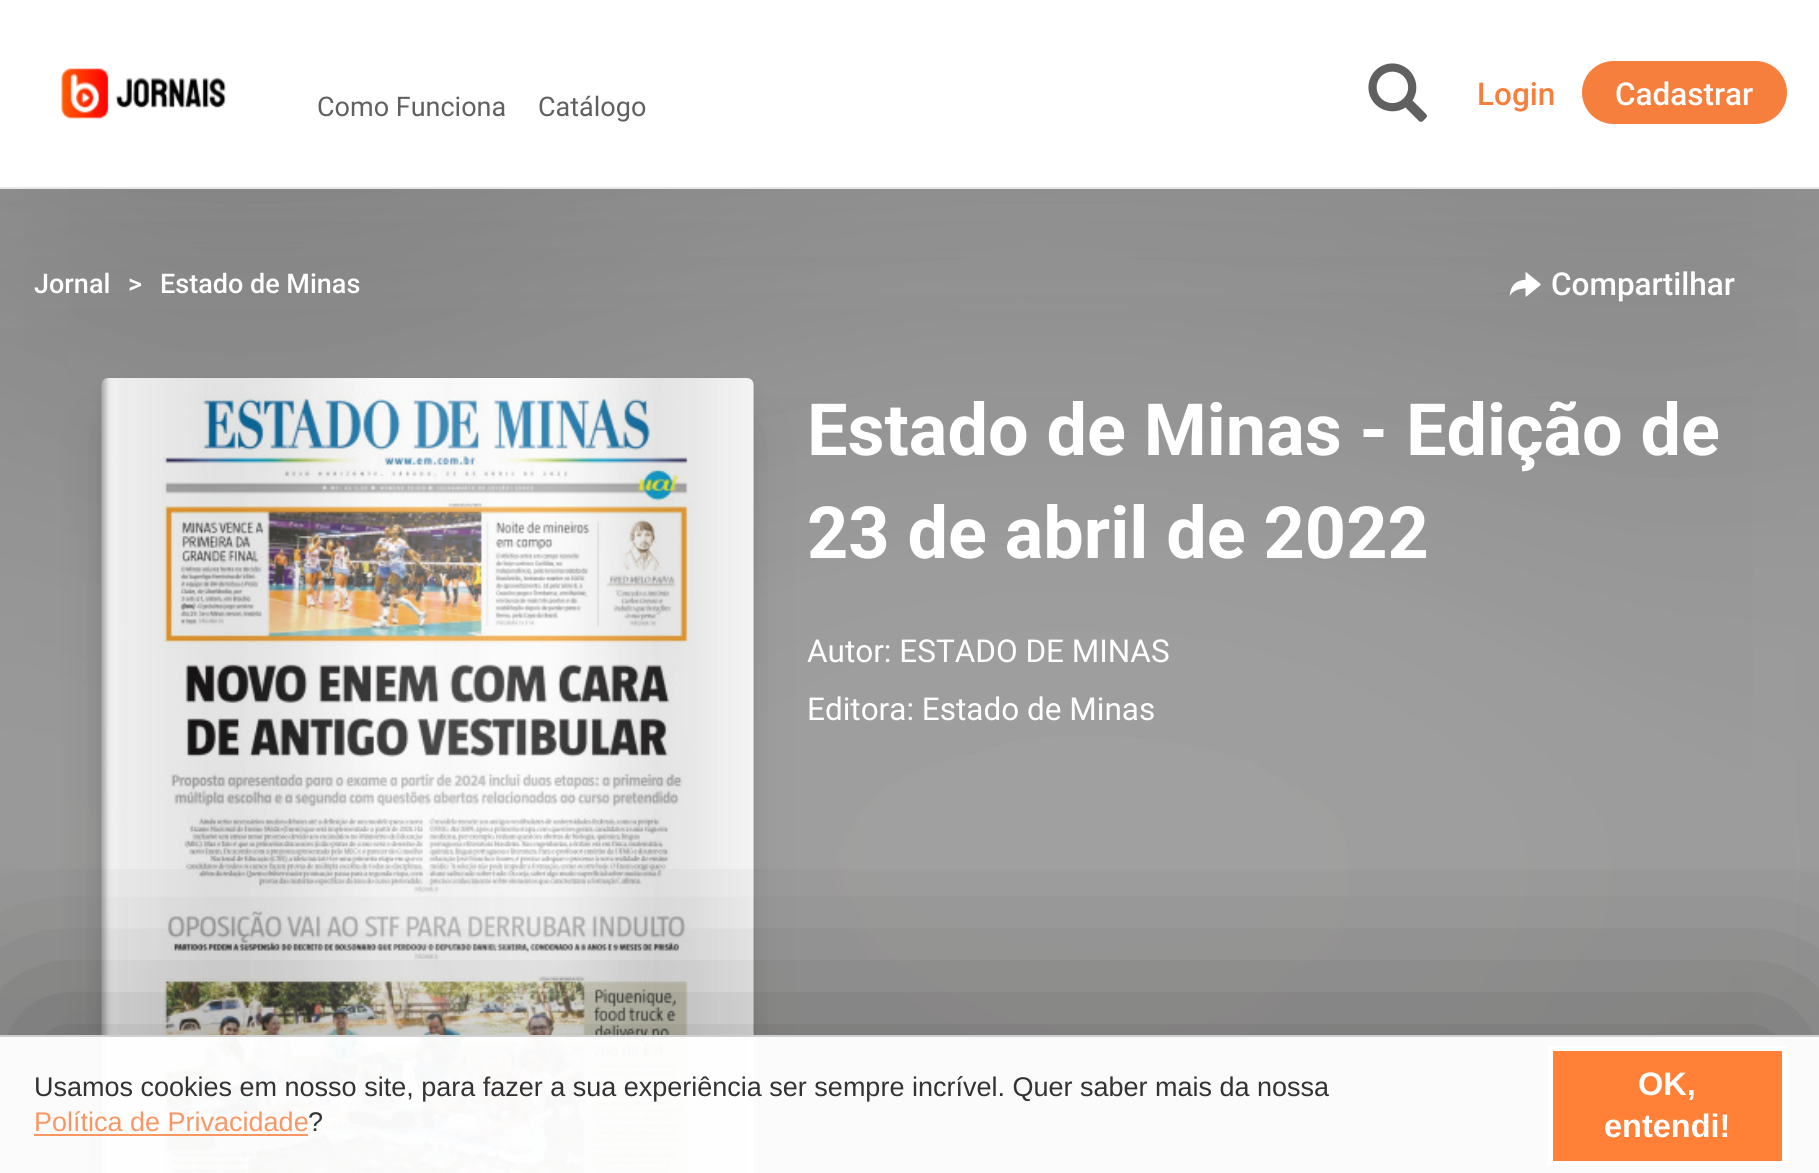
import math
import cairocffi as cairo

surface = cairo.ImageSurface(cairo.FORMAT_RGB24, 1819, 1173)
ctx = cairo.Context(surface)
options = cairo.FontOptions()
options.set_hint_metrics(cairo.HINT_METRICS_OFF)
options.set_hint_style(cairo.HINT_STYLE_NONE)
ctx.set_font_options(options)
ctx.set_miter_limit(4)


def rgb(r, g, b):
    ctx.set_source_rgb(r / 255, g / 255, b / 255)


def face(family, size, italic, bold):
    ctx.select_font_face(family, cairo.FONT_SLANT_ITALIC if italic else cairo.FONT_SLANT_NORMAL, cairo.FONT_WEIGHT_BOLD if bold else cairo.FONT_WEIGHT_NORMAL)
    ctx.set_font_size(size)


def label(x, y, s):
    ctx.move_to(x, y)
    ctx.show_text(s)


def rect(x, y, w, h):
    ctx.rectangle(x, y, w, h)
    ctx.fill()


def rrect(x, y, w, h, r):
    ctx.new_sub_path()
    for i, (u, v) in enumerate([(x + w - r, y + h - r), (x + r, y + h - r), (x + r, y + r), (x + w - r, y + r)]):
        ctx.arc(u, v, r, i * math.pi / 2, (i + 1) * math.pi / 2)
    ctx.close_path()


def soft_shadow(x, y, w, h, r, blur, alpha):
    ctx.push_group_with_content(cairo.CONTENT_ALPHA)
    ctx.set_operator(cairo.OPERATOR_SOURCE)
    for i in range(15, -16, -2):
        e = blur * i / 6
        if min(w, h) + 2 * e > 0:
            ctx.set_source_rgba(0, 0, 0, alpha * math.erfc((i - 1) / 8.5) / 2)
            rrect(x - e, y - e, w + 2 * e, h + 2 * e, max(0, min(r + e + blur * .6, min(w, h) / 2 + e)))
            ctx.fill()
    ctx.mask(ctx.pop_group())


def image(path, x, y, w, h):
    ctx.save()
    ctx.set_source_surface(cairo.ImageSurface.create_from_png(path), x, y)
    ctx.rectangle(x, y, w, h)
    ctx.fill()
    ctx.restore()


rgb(255, 255, 255)
ctx.paint()
rgb(171, 171, 171)
rect(0, 189, 1819, 984)
rgb(231, 231, 231)
rect(0, 187, 1819, 2)
image('image0.png', 61, 68, 165, 51)
face('Roboto', 27, 0, 0)
rgb(96, 96, 96)
label(317, 116, 'Como Funciona')
label(538, 116, 'Catálogo')
image('image1.png', 1368, 63, 59, 59)
face('Roboto Medium', 31.5, 0, 0)
rgb(246, 127, 62)
label(1477, 105, 'Login')
rrect(1582, 61, 205, 63, 31.5)
ctx.fill()
rgb(255, 255, 255)
label(1615, 105, 'Cadastrar')
image('image2.png', 0, 189, 1819, 984)
face('Roboto Medium', 27, 0, 0)
label(34, 293, 'Jornal')
label(128, 293, '>')
label(160, 293, 'Estado de Minas')
image('image3.png', 1509, 272, 32, 25)
face('Roboto Medium', 31.5, 0, 0)
label(1551, 295, 'Compartilhar')
rgb(0, 0, 0)
soft_shadow(110, 396, 635, 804, 0, 9, 0.2)
soft_shadow(119, 432, 617, 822, 0, 27, 0.2)
image('image4.png', 101, 378, 653, 795)
face('Roboto', 72, 0, 1)
rgb(255, 255, 255)
label(807, 455, 'Estado de Minas - Edição de')
label(807, 558, '23 de abril de 2022')
face('Roboto', 31.5, 0, 0)
label(807, 662, 'Autor: ESTADO DE MINAS')
label(807, 720, 'Editora: Estado de Minas')
ctx.save()
ctx.rectangle(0, 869, 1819, 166)
ctx.clip()
rgb(0, 0, 0)
soft_shadow(18, 1008, 1784, 104, 0, 95.5, 0.3)
ctx.restore()
ctx.set_source_rgba(1, 1, 1, 0.96)
rect(0, 1035, 1819, 138)
ctx.set_source_rgba(0, 0, 0, 0.18)
rect(0, 1035, 1819, 2)
face('Liberation Sans', 27, 0, 0)
rgb(51, 51, 51)
label(34, 1096, 'Usamos cookies em nosso site, para fazer a sua experiência ser sempre incrível. Quer saber mais da nossa')
rgb(247, 152, 100)
label(34, 1131, 'Política de Privacidade')
ctx.set_source_rgba(0.965, 0.498, 0.243, 0.8)
rect(34, 1134, 274, 2)
rgb(51, 51, 51)
label(308, 1131, '?')
rgb(255, 128, 54)
ctx.rectangle(1550.5, 1048.5, 234, 115)
ctx.fill_preserve()
rgb(255, 255, 255)
ctx.set_line_width(5)
ctx.stroke()
face('Liberation Sans', 32.5, 0, 1)
label(1638, 1095, 'OK,')
label(1604, 1137, 'entendi!')
surface.write_to_png('render.png')
